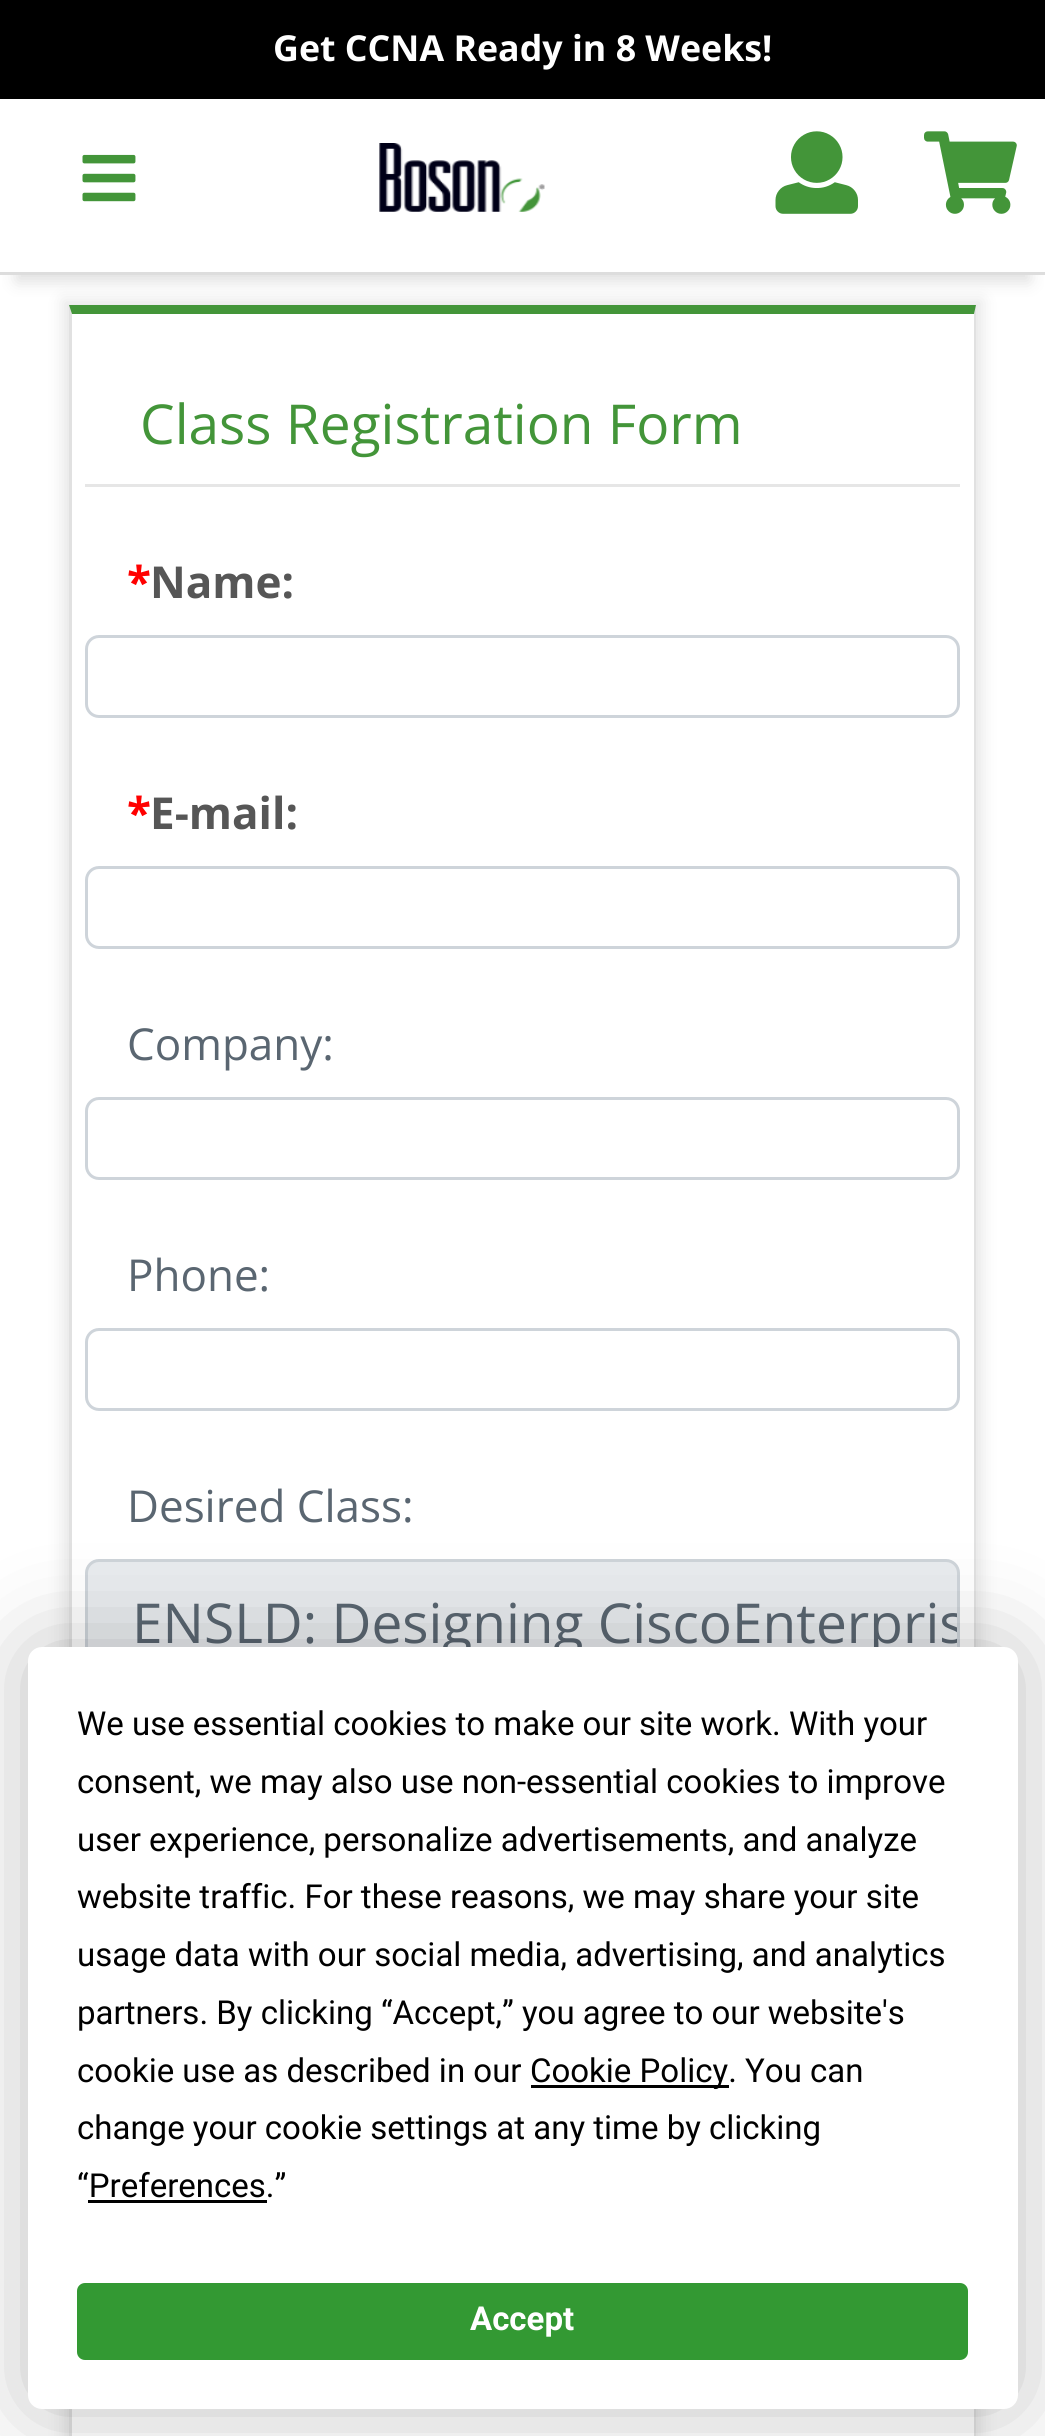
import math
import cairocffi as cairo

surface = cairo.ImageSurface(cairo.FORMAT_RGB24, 1045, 2436)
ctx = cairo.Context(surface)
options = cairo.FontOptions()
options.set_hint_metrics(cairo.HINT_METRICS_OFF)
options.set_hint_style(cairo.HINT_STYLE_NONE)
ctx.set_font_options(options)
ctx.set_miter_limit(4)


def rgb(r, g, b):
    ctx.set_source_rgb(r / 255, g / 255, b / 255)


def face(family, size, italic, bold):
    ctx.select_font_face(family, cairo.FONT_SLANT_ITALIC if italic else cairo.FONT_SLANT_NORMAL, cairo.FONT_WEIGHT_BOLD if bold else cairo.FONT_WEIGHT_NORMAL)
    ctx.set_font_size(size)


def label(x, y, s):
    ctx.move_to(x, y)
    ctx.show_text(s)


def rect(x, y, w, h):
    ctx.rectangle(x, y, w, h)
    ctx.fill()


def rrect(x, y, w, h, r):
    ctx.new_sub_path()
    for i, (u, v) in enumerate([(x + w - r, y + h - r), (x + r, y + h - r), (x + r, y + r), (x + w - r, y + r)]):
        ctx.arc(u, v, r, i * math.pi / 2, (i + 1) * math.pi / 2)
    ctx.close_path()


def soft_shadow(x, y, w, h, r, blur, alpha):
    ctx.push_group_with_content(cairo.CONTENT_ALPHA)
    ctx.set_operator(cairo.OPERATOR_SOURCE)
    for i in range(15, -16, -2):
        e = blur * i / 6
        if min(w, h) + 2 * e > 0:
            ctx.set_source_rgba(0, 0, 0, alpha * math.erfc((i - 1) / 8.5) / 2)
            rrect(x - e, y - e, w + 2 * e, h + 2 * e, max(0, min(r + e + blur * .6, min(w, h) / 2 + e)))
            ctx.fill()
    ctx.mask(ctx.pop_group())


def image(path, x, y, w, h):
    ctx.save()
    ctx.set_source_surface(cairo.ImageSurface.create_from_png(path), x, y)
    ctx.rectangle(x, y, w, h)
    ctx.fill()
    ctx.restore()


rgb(255, 255, 255)
ctx.paint()
rgb(0, 0, 0)
soft_shadow(63, 300, 919, 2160, 0, 8, 0.1)
rgb(255, 255, 255)
rect(69, 305, 907, 2131)
rgb(67, 149, 57)
ctx.new_path()
ctx.move_to(69, 305)
ctx.line_to(976, 305)
ctx.line_to(974, 314)
ctx.line_to(72, 314)
ctx.close_path()
ctx.fill()
ctx.set_source_rgba(0, 0, 0, 0.12)
ctx.new_path()
ctx.move_to(976, 305)
ctx.line_to(976, 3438)
ctx.line_to(974, 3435)
ctx.line_to(974, 314)
ctx.close_path()
ctx.fill()
ctx.new_path()
ctx.move_to(69, 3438)
ctx.line_to(69, 305)
ctx.line_to(72, 314)
ctx.line_to(72, 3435)
ctx.close_path()
ctx.fill()
ctx.save()
ctx.rectangle(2, 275, 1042, 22)
ctx.clip()
rgb(221, 221, 221)
soft_shadow(17, 121, 1012, 160, 0, 8, 1)
ctx.restore()
rgb(0, 0, 0)
rect(0, 0, 1045, 99)
face('Open Sans', 35.75, 0, 1)
rgb(255, 255, 255)
label(273, 61, 'Get CCNA Ready in 8 Weeks!')
rgb(221, 221, 221)
rect(0, 272, 1045, 3)
image('image0.png', 82, 154, 54, 48)
image('image1.png', 379, 143, 166, 69)
image('image2.png', 775, 131, 83, 83)
image('image3.png', 924, 131, 93, 83)
face('Open Sans', 55, 0, 0)
rgb(67, 149, 57)
label(140, 444, 'Class Registration Form')
rgb(230, 230, 230)
rect(85, 484, 875, 3)
face('Open Sans', 44, 0, 1)
rgb(255, 0, 0)
label(127, 598, '*')
rgb(86, 86, 86)
label(150, 598, 'Name:')
rrect(86.5, 636.5, 872, 80, 12.5)
rgb(206, 212, 218)
ctx.set_line_width(3)
ctx.stroke()
rgb(255, 0, 0)
label(127, 829, '*')
rgb(86, 86, 86)
label(150, 829, 'E-mail:')
rrect(86.5, 867.5, 872, 80, 12.5)
rgb(206, 212, 218)
ctx.stroke()
face('Open Sans', 44, 0, 0)
rgb(90, 102, 113)
label(127, 1060, 'Company:')
rrect(86.5, 1098.5, 872, 80, 12.5)
rgb(206, 212, 218)
ctx.stroke()
rgb(90, 102, 113)
label(127, 1291, 'Phone:')
rrect(86.5, 1329.5, 872, 80, 12.5)
rgb(206, 212, 218)
ctx.stroke()
rgb(90, 102, 113)
label(127, 1522, 'Desired Class:')
rgb(233, 236, 239)
rrect(86.5, 1560.5, 872, 294, 12.5)
ctx.fill_preserve()
rgb(206, 212, 218)
ctx.stroke()
face('Open Sans', 55, 0, 0)
rgb(90, 102, 113)
label(132, 1643, 'ENSLD: Designing Cisco')
ctx.save()
rrect(88, 1562, 869, 292, 11)
ctx.clip()
label(732, 1643, 'Enterpris')
ctx.restore()
rgb(0, 0, 0)
soft_shadow(28, 1647, 990, 762, 14, 48, 0.25)
rgb(255, 255, 255)
rrect(28, 1647, 990, 762, 14)
ctx.fill()
face('Roboto', 33, 0, 0)
rgb(0, 0, 0)
label(77, 1735, 'We use essential cookies to make our site work. With your')
label(77, 1793, 'consent, we may also use non-essential cookies to improve')
label(77, 1851, 'user experience, personalize advertisements, and analyze')
label(77, 1908, 'website traffic. For these reasons, we may share your site')
label(77, 1966, 'usage data with our social media, advertising, and analytics')
label(77, 2024, 'partners. By clicking “Accept,” you agree to our website\'s')
label(77, 2082, 'cookie use as described in our')
rect(531, 2085, 198, 3)
label(530, 2082, 'Cookie Policy. You can')
label(77, 2139, 'change your cookie settings at any time by clicking')
label(77, 2197, '“Preferences.”')
rect(88, 2200, 179, 3)
rgb(51, 153, 51)
rrect(78.5, 2284.5, 888, 74, 6.5)
ctx.fill_preserve()
ctx.stroke()
face('Roboto', 33, 0, 1)
rgb(255, 255, 255)
label(470, 2330, 'Accept')
surface.write_to_png('render.png')
